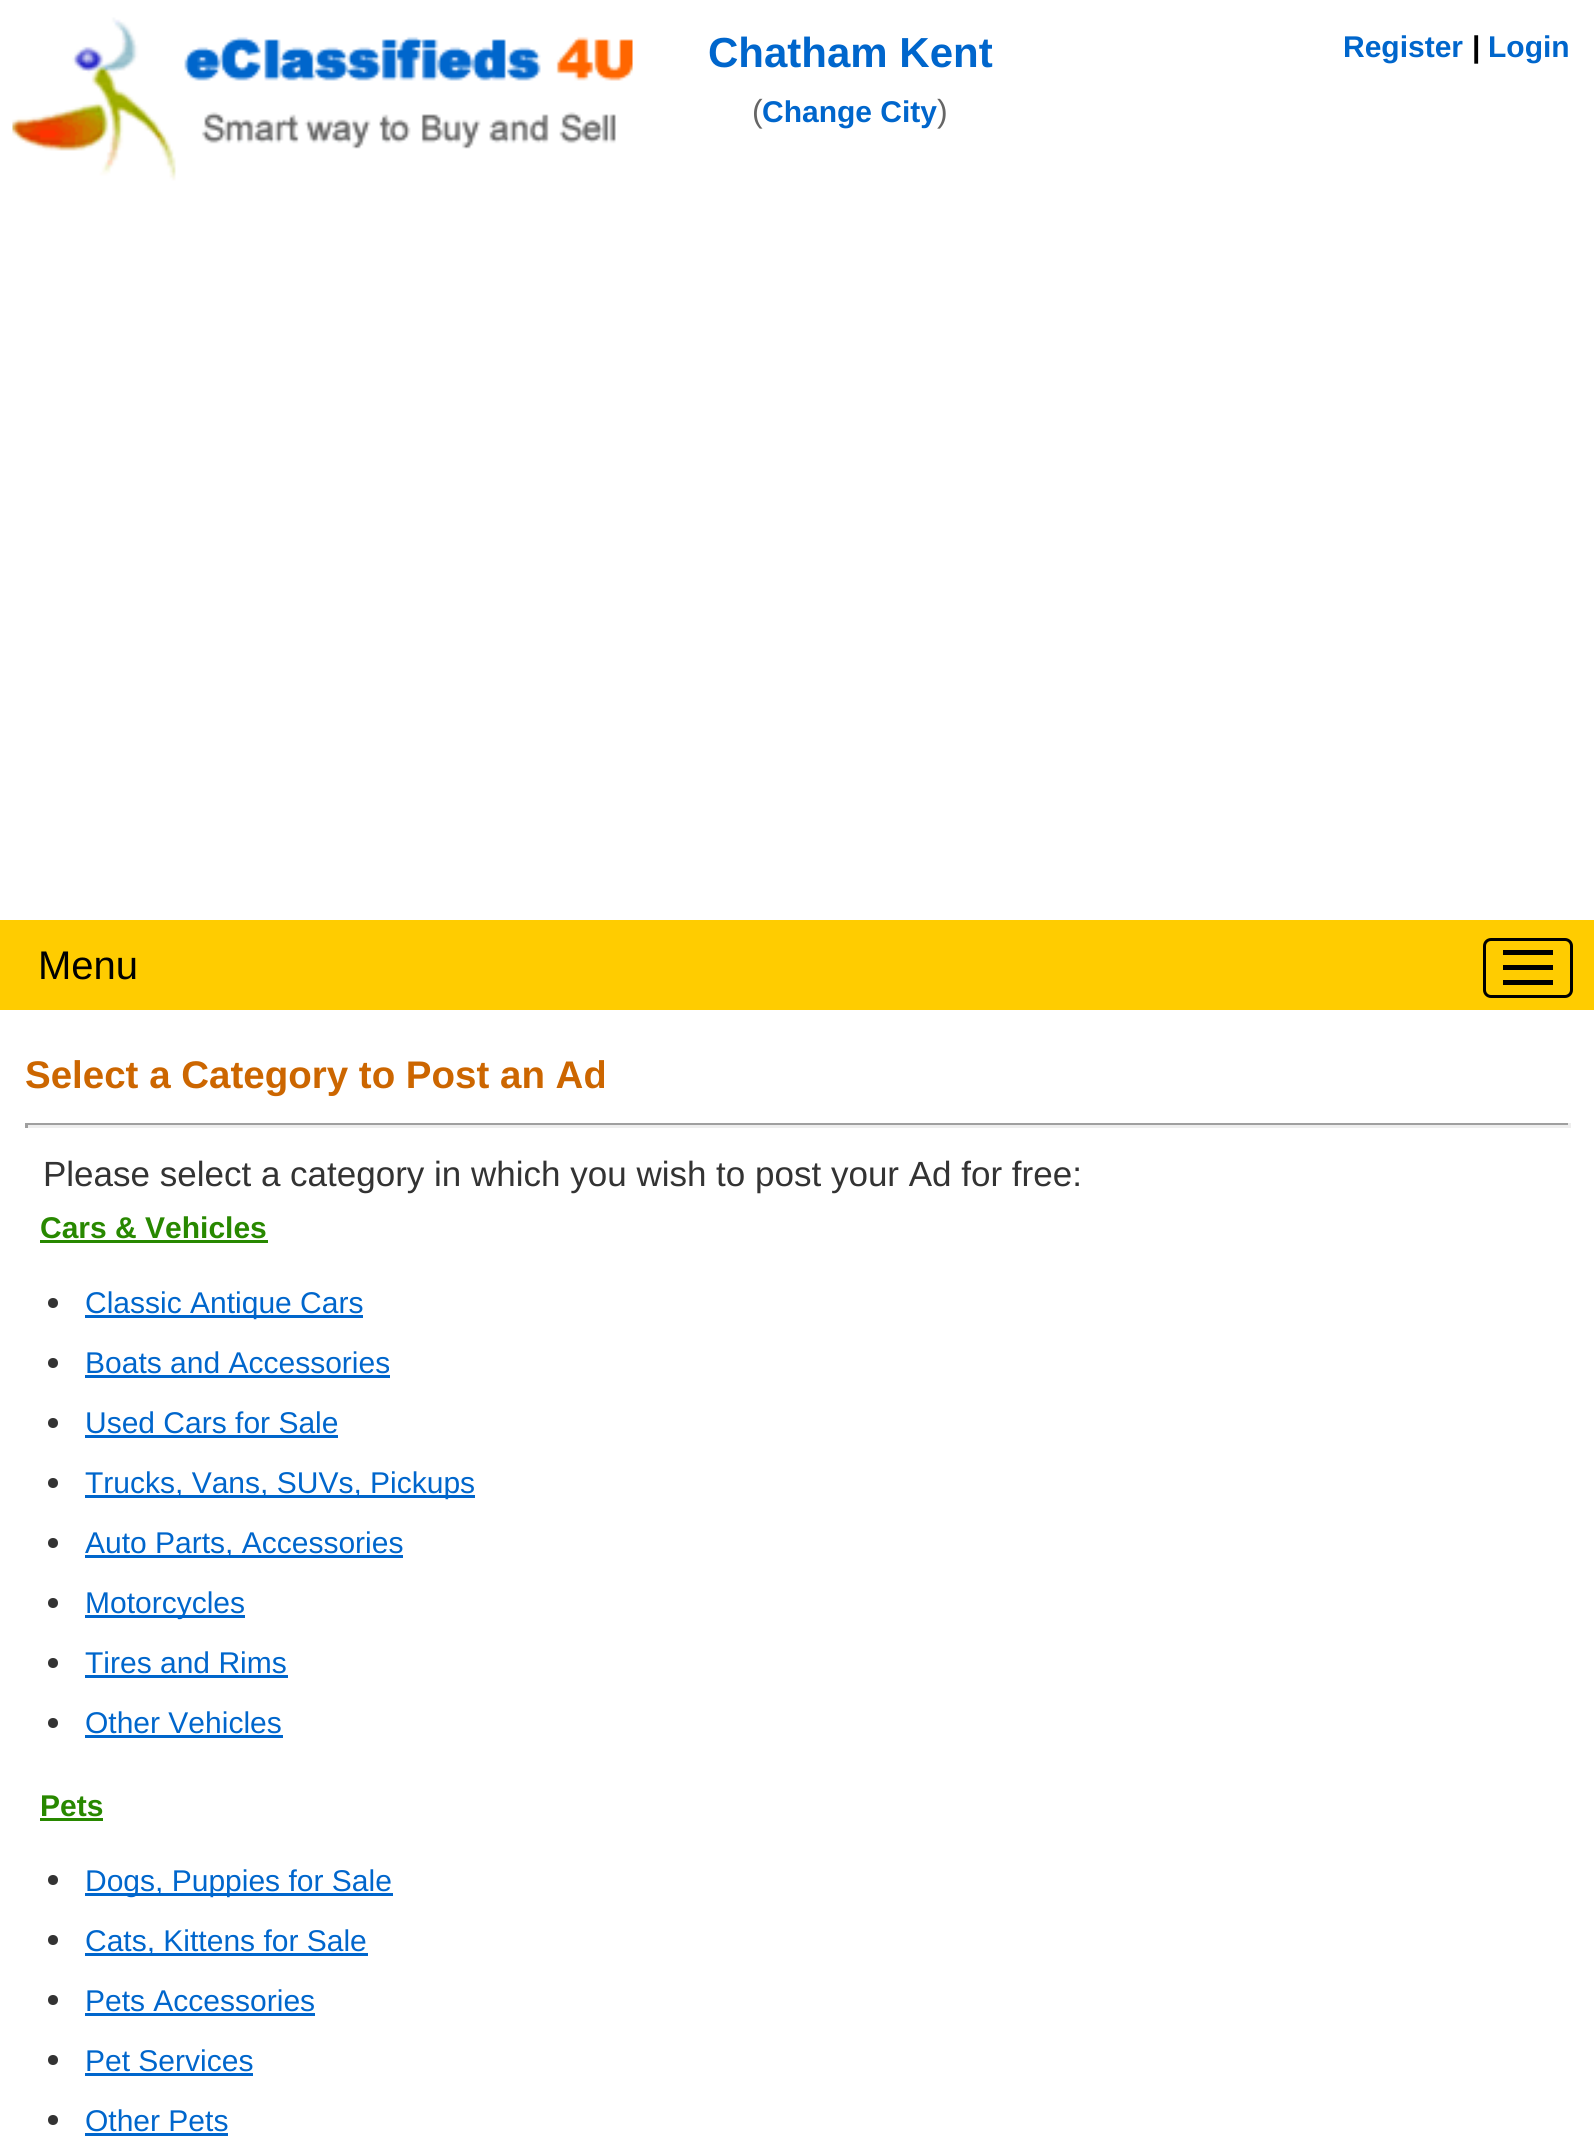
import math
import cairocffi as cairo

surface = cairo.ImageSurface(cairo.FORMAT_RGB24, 1594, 2146)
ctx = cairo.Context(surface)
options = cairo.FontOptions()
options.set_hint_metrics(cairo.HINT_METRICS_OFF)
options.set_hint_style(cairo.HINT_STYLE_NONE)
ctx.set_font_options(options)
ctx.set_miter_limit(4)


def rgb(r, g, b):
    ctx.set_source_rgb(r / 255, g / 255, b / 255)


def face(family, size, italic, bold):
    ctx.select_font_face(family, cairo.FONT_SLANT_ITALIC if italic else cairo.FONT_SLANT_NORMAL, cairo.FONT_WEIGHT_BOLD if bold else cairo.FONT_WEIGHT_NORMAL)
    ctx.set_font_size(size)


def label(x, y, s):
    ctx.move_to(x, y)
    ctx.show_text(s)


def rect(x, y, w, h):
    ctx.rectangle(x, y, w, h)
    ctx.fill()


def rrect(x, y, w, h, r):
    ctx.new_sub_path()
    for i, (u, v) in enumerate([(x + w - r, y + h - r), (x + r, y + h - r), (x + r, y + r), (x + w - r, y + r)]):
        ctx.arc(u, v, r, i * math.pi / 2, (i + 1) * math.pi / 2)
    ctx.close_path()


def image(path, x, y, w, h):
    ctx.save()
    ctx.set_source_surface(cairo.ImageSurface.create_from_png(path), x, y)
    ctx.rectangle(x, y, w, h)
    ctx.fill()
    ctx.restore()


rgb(255, 255, 255)
ctx.paint()
image('image0.png', 12, 17, 621, 164)
face('Liberation Sans', 42, 0, 1)
rgb(0, 102, 204)
label(708, 67, 'Chatham Kent')
face('Liberation Sans', 32, 0, 0)
rgb(102, 102, 102)
label(752, 122, '(')
face('Liberation Sans', 30, 0, 1)
rgb(0, 102, 204)
label(762, 122, 'Change City')
face('Liberation Sans', 32, 0, 0)
rgb(102, 102, 102)
label(937, 122, ')')
face('Liberation Sans', 30, 0, 1)
rgb(0, 102, 204)
label(1343, 57, 'Register')
rgb(0, 0, 0)
label(1472, 57, '|')
rgb(0, 102, 204)
label(1488, 57, 'Login')
rgb(255, 204, 0)
rect(0, 920, 1594, 90)
face('Liberation Sans', 40, 0, 0)
rgb(0, 0, 0)
label(38, 979, 'Menu')
rrect(1484.5, 939.5, 87, 57, 6.5)
ctx.set_line_width(3)
ctx.stroke()
rect(1503, 950, 50, 5)
rect(1503, 965, 50, 5)
rect(1503, 980, 50, 5)
face('Liberation Sans', 38.5, 0, 1)
rgb(204, 102, 0)
label(25, 1088, 'Select a Category to Post an Ad')
rgb(159, 159, 159)
rect(25, 1123, 1545, 2)
rgb(238, 238, 238)
rect(1568, 1123, 3, 5)
rect(25, 1125, 1545, 3)
rgb(159, 159, 159)
rect(25, 1123, 3, 5)
face('Liberation Sans', 35, 0, 0)
rgb(51, 51, 51)
label(43, 1186, 'Please select a category in which you wish to post your Ad for free:')
face('Liberation Sans', 30, 0, 1)
rgb(40, 136, 0)
label(40, 1238, 'Cars & Vehicles')
rect(40, 1240, 228, 3)
rgb(51, 51, 51)
ctx.new_path()
ctx.arc(53, 1303, 5, 0, 2 * math.pi)
ctx.fill()
rgb(0, 102, 204)
rect(85, 1315, 278, 3)
face('Liberation Sans', 30, 0, 0)
label(85, 1313, 'Classic Antique Cars')
rgb(51, 51, 51)
ctx.new_path()
ctx.arc(53, 1363, 5, 0, 2 * math.pi)
ctx.fill()
rgb(0, 102, 204)
label(85, 1373, 'Boats and Accessories')
rect(85, 1375, 305, 3)
rgb(51, 51, 51)
ctx.new_path()
ctx.arc(53, 1423, 5, 0, 2 * math.pi)
ctx.fill()
rgb(0, 102, 204)
label(85, 1433, 'Used Cars for Sale')
rect(85, 1435, 253, 3)
rgb(51, 51, 51)
ctx.new_path()
ctx.arc(53, 1483, 5, 0, 2 * math.pi)
ctx.fill()
rgb(0, 102, 204)
rect(85, 1495, 390, 3)
label(85, 1493, 'Trucks, Vans, SUVs, Pickups')
rgb(51, 51, 51)
ctx.new_path()
ctx.arc(53, 1543, 5, 0, 2 * math.pi)
ctx.fill()
rgb(0, 102, 204)
rect(85, 1555, 318, 3)
label(85, 1553, 'Auto Parts, Accessories')
rgb(51, 51, 51)
ctx.new_path()
ctx.arc(53, 1603, 5, 0, 2 * math.pi)
ctx.fill()
rgb(0, 102, 204)
rect(85, 1615, 160, 3)
label(85, 1613, 'Motorcycles')
rgb(51, 51, 51)
ctx.new_path()
ctx.arc(53, 1663, 5, 0, 2 * math.pi)
ctx.fill()
rgb(0, 102, 204)
label(85, 1673, 'Tires and Rims')
rect(85, 1675, 203, 3)
rgb(51, 51, 51)
ctx.new_path()
ctx.arc(53, 1723, 5, 0, 2 * math.pi)
ctx.fill()
rgb(0, 102, 204)
label(85, 1733, 'Other Vehicles')
rect(85, 1735, 198, 3)
face('Liberation Sans', 30, 0, 1)
rgb(40, 136, 0)
label(40, 1816, 'Pets')
rect(40, 1818, 63, 3)
rgb(51, 51, 51)
ctx.new_path()
ctx.arc(53, 1880, 5, 0, 2 * math.pi)
ctx.fill()
rgb(0, 102, 204)
rect(85, 1893, 308, 3)
face('Liberation Sans', 30, 0, 0)
label(85, 1891, 'Dogs, Puppies for Sale')
rgb(51, 51, 51)
ctx.new_path()
ctx.arc(53, 1940, 5, 0, 2 * math.pi)
ctx.fill()
rgb(0, 102, 204)
rect(85, 1953, 283, 3)
label(85, 1951, 'Cats, Kittens for Sale')
rgb(51, 51, 51)
ctx.new_path()
ctx.arc(53, 2000, 5, 0, 2 * math.pi)
ctx.fill()
rgb(0, 102, 204)
label(85, 2011, 'Pets Accessories')
rect(85, 2013, 230, 3)
rgb(51, 51, 51)
ctx.new_path()
ctx.arc(53, 2060, 5, 0, 2 * math.pi)
ctx.fill()
rgb(0, 102, 204)
label(85, 2071, 'Pet Services')
rect(85, 2073, 168, 3)
rgb(51, 51, 51)
ctx.new_path()
ctx.arc(53, 2120, 5, 0, 2 * math.pi)
ctx.fill()
rgb(0, 102, 204)
label(85, 2131, 'Other Pets')
rect(85, 2133, 143, 3)
surface.write_to_png('render.png')
